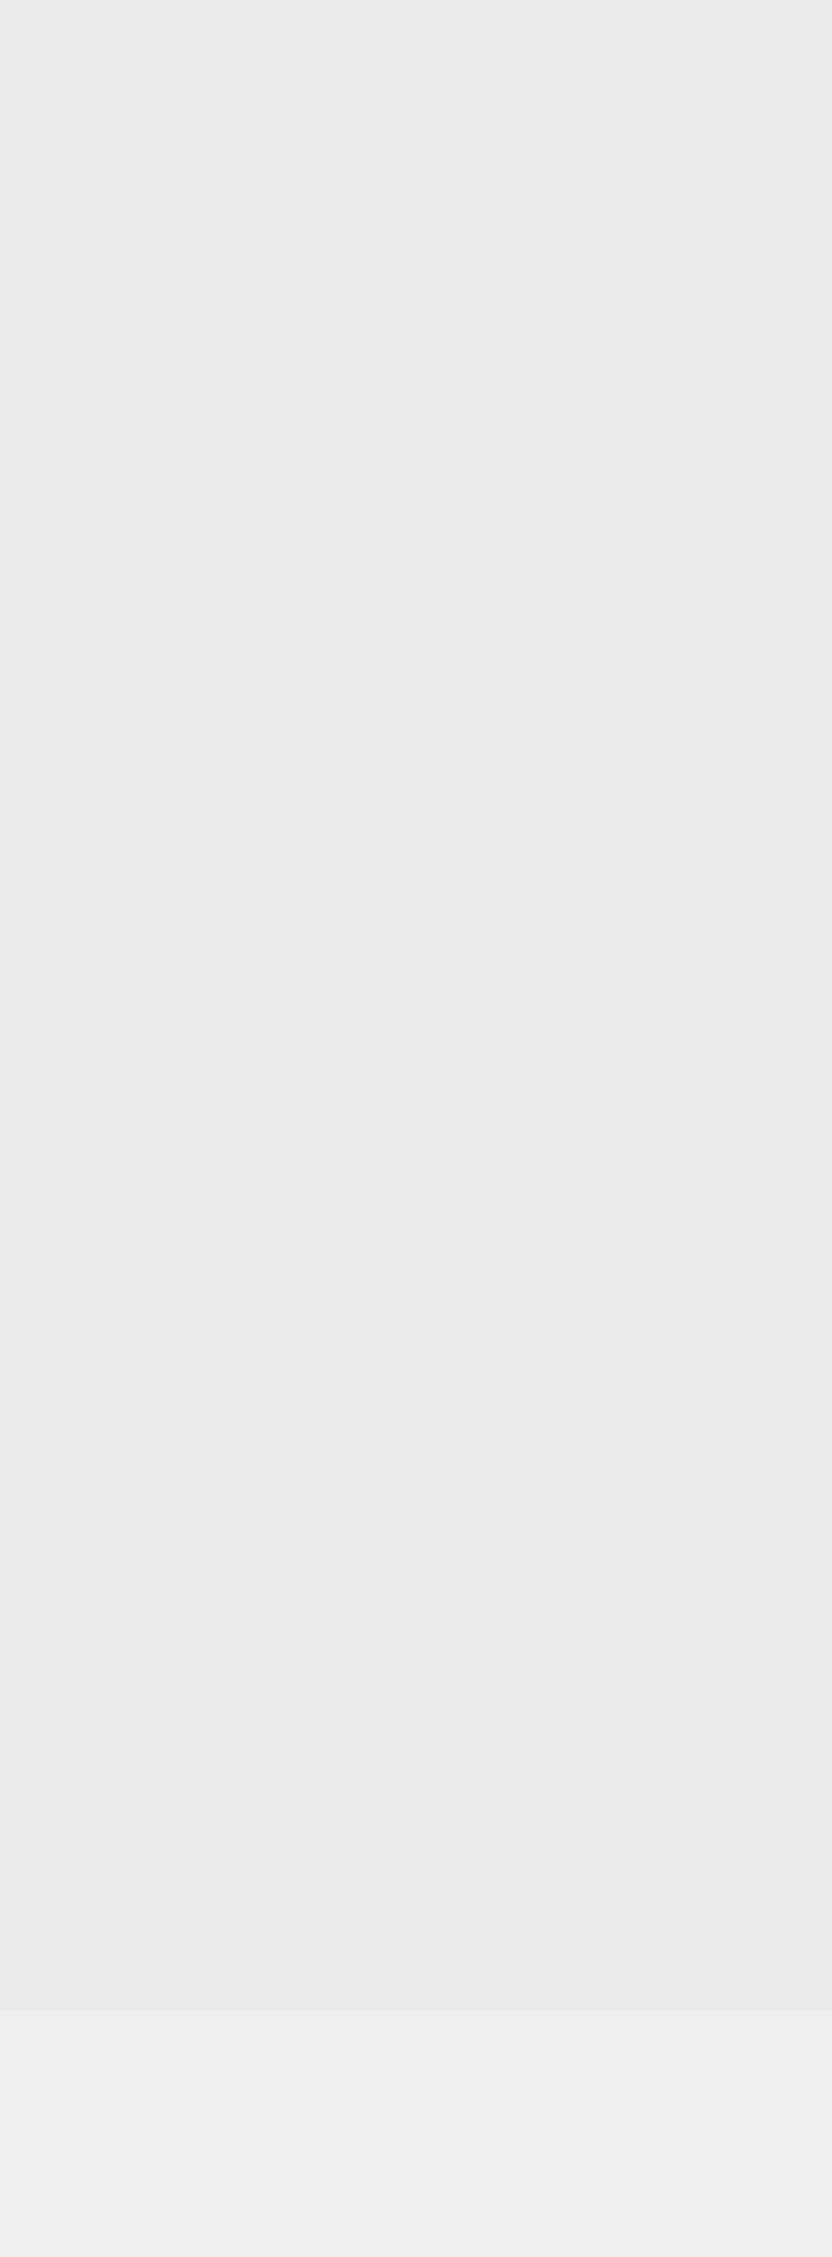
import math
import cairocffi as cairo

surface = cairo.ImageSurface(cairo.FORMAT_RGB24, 832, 2257)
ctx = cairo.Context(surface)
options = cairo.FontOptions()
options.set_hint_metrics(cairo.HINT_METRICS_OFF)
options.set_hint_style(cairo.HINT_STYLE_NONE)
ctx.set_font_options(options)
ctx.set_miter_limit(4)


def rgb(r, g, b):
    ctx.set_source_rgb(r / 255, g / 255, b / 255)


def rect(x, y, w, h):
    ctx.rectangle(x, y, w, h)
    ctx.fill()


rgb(233, 233, 233)
ctx.paint()
rgb(239, 239, 239)
rect(0, 2010, 832, 247)
surface.write_to_png('render.png')
